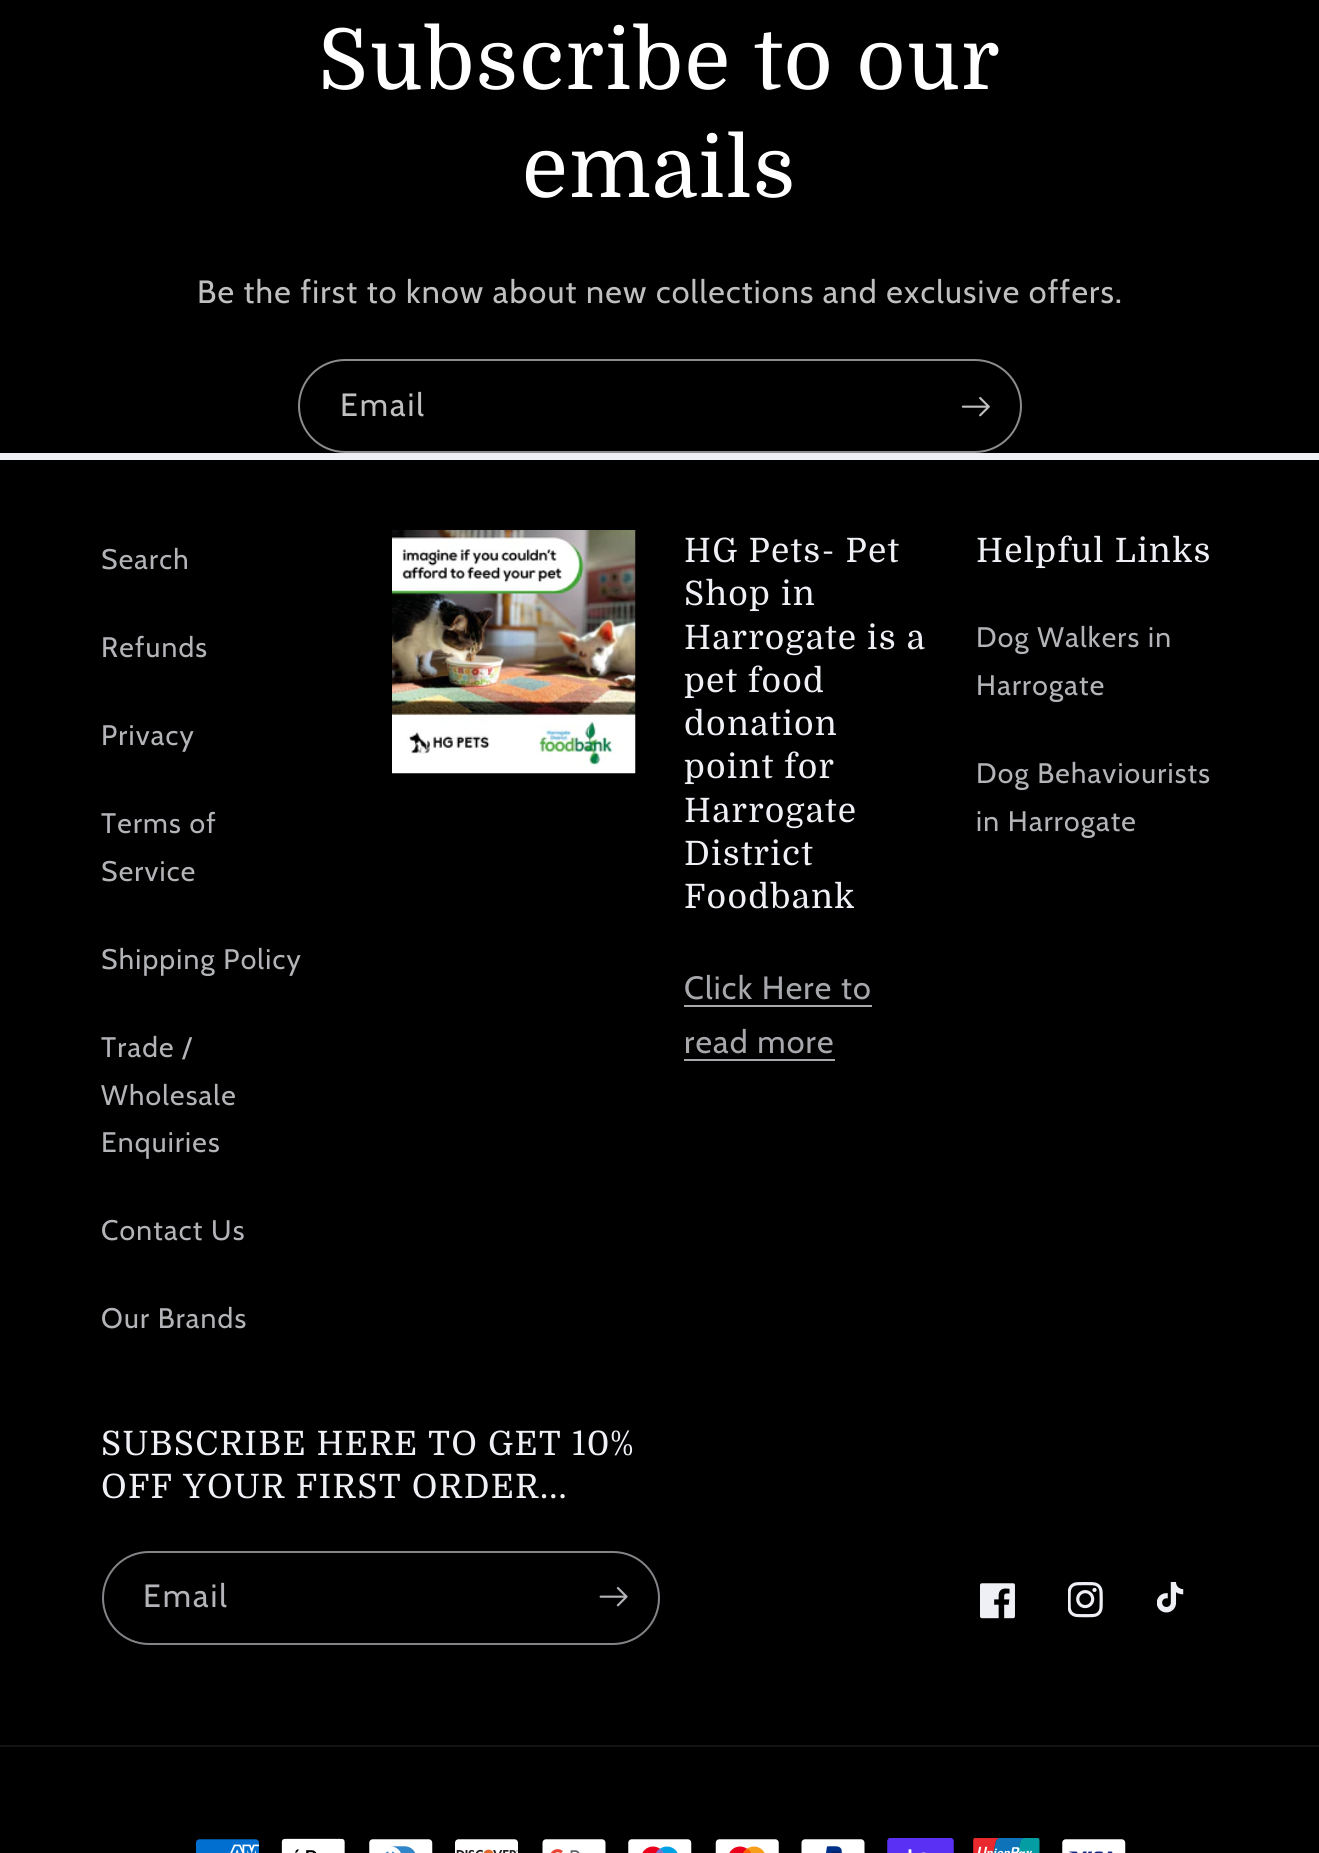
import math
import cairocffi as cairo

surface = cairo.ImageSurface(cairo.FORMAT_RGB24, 1319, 1853)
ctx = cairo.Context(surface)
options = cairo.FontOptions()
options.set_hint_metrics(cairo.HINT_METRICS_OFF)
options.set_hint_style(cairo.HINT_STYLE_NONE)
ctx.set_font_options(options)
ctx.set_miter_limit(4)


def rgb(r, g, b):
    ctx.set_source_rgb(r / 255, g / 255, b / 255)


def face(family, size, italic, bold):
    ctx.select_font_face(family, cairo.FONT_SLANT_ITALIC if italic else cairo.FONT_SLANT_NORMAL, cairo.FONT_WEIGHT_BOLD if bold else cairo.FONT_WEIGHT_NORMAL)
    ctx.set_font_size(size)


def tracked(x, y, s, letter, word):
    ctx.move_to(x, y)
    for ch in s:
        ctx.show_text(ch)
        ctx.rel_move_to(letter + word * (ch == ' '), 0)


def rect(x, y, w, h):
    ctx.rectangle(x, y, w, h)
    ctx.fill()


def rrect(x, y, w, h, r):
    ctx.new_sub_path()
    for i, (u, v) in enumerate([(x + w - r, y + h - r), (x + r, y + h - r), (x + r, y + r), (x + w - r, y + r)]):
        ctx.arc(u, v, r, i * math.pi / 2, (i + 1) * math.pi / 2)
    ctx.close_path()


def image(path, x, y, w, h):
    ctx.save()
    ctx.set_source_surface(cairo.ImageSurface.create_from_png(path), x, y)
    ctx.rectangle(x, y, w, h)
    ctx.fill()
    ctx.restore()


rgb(239, 240, 245)
ctx.paint()
rgb(0, 0, 0)
rect(0, 0, 1319, 453)
face('Domine', 84, 0, 0)
rgb(255, 255, 255)
tracked(318, 89, 'Subscribe to our', 1.25, 0)
tracked(522, 197, 'emails', 1.25, 0)
face('Cabin', 32.2, 0, 0)
rgb(191, 191, 191)
tracked(197, 303, 'Be the first to know about new collections and exclusive offers.', 1.2, 0)
rrect(299, 360, 722, 92, 46)
rgb(140, 140, 140)
ctx.stroke()
rgb(191, 191, 191)
tracked(340, 416, 'Email', 2, 0)
image('image0.png', 961, 397, 29, 20)
rgb(0, 0, 0)
rect(0, 460, 1319, 1393)
face('Cabin', 28.25, 0, 0)
rgb(179, 180, 184)
tracked(101, 569, 'Search', 1.2, 0)
tracked(101, 657, 'Refunds', 1.2, 0)
tracked(101, 745, 'Privacy', 1.2, 0)
tracked(101, 833, 'Terms of', 1.2, 0)
tracked(101, 881, 'Service', 1.2, 0)
tracked(101, 969, 'Shipping Policy', 1.2, 0)
tracked(101, 1057, 'Trade /', 1.2, 0)
tracked(101, 1105, 'Wholesale', 1.2, 0)
tracked(101, 1152, 'Enquiries', 1.2, 0)
tracked(101, 1240, 'Contact Us', 1.2, 0)
tracked(101, 1328, 'Our Brands', 1.2, 0)
image('image1.png', 392, 530, 244, 244)
face('Domine', 33.6, 0, 0)
rgb(239, 240, 245)
tracked(684, 562, 'HG Pets- Pet', 1.25, 0)
tracked(684, 605, 'Shop in', 1.25, 0)
tracked(684, 649, 'Harrogate is a', 1.25, 0)
tracked(684, 692, 'pet food', 1.25, 0)
tracked(684, 735, 'donation', 1.25, 0)
tracked(684, 778, 'point for', 1.25, 0)
tracked(684, 822, 'Harrogate', 1.25, 0)
tracked(684, 865, 'District', 1.25, 0)
tracked(684, 908, 'Foodbank', 1.25, 0)
face('Cabin', 32.2, 0, 0)
rgb(167, 168, 172)
tracked(684, 999, 'Click Here to', 1.2, 0)
rect(684, 1005, 188, 2)
tracked(684, 1053, 'read more', 1.2, 0)
rect(684, 1059, 151, 2)
face('Domine', 33.6, 0, 0)
rgb(239, 240, 245)
tracked(976, 562, 'Helpful Links', 1.25, 0)
face('Cabin', 28.25, 0, 0)
rgb(179, 180, 184)
tracked(976, 647, 'Dog Walkers in', 1.2, 0)
tracked(976, 695, 'Harrogate', 1.2, 0)
tracked(976, 783, 'Dog Behaviourists', 1.2, 0)
tracked(976, 831, 'in Harrogate', 1.2, 0)
face('Domine', 33.6, 0, 0)
rgb(239, 240, 245)
tracked(101, 1455, 'SUBSCRIBE HERE TO GET 10%', 1.25, 0)
tracked(101, 1498, 'OFF YOUR FIRST ORDER...', 1.25, 0)
rrect(103, 1552, 556, 92, 46)
rgb(131, 132, 135)
ctx.stroke()
face('Cabin', 32.2, 0, 0)
rgb(179, 180, 184)
tracked(143, 1607, 'Email', 2, 0)
image('image2.png', 599, 1587, 29, 20)
image('image3.png', 980, 1583, 35, 36)
image('image4.png', 1068, 1582, 35, 36)
image('image5.png', 1157, 1582, 27, 31)
rgb(19, 19, 20)
rect(0, 1745, 1319, 2)
image('image6.png', 196, 1839, 63, 14)
image('image7.png', 281, 1838, 64, 15)
image('image8.png', 369, 1839, 64, 14)
image('image9.png', 455, 1839, 63, 14)
image('image10.png', 542, 1839, 64, 14)
image('image11.png', 628, 1839, 64, 14)
image('image12.png', 715, 1839, 64, 14)
image('image13.png', 801, 1839, 64, 14)
image('image14.png', 887, 1838, 67, 15)
image('image15.png', 973, 1838, 67, 15)
image('image16.png', 1062, 1839, 64, 14)
surface.write_to_png('render.png')
